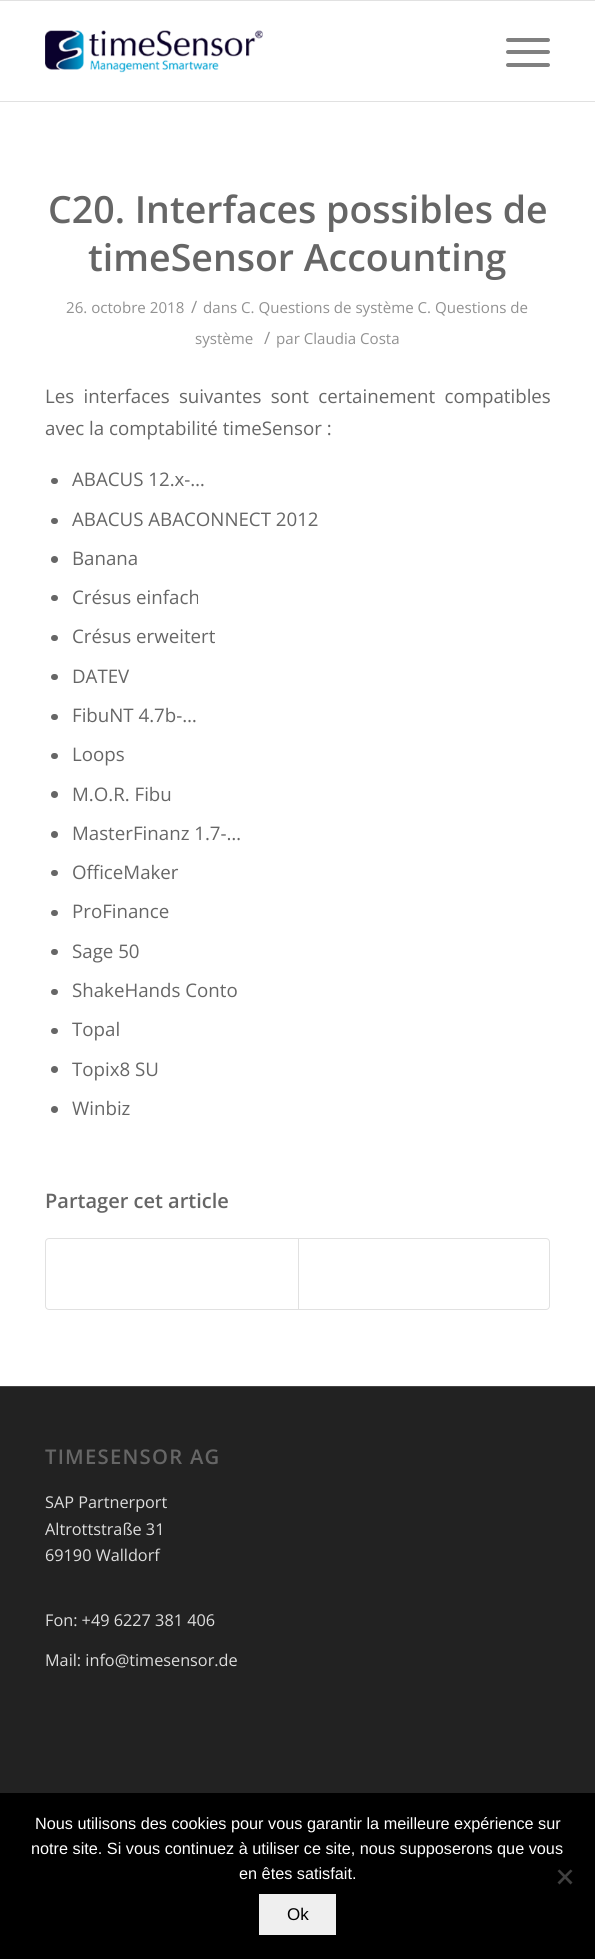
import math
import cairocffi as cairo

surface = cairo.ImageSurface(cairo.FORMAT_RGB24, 595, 1959)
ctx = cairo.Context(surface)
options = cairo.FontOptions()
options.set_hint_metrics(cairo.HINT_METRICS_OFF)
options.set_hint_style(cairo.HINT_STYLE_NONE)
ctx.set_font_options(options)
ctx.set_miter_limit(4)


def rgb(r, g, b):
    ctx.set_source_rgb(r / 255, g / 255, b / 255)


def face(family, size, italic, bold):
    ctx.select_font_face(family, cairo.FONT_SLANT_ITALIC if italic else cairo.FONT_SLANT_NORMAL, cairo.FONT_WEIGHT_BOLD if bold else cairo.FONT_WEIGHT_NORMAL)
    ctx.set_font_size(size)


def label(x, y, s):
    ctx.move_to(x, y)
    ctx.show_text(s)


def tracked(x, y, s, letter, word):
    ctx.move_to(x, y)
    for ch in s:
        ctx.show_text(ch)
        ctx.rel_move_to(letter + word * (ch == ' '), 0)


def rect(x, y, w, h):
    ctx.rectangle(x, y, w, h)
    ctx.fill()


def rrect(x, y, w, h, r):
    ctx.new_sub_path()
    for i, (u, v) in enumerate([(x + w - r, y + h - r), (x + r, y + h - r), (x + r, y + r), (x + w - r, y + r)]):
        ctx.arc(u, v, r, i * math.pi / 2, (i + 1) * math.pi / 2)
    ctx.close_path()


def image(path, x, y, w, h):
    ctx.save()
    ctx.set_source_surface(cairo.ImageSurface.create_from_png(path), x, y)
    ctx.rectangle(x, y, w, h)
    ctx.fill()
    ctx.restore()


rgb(255, 255, 255)
ctx.paint()
rgb(225, 225, 225)
rect(0, 0, 595, 1)
rect(0, 101, 595, 1)
image('image0.png', 45, 30, 218, 43)
rgb(128, 128, 128)
rrect(506, 50, 44, 4, 2)
ctx.fill()
rrect(506, 38, 44, 4, 2)
ctx.fill()
rrect(506, 63, 44, 4, 2)
ctx.fill()
face('Open Sans SemiBold', 37.5, 0, 0)
rgb(102, 102, 102)
label(48, 223, 'C20. Interfaces possibles de')
label(88, 271, 'timeSensor Accounting')
face('Open Sans', 15.1, 0, 0)
rgb(145, 145, 145)
label(66, 313, '26. octobre 2018')
face('Open Sans', 17, 0, 0)
label(191, 313, '/')
face('Open Sans', 15.1, 0, 0)
label(203, 313, 'dans C. Questions de système C. Questions de')
label(195, 344, 'système')
face('Open Sans', 17, 0, 0)
label(264, 344, '/')
face('Open Sans', 15.1, 0, 0)
label(276, 344, 'par Claudia Costa')
face('Open Sans', 18.7, 0, 0)
rgb(102, 102, 102)
tracked(45, 403, 'Les interfaces suivantes sont certainement compatibles', 0, 4.5)
label(45, 435, 'avec la comptabilité timeSensor :')
rrect(51, 478, 7, 6, 3)
ctx.fill()
label(72, 486, 'ABACUS 12.x-…')
rrect(51, 518, 7, 6, 3)
ctx.fill()
label(72, 526, 'ABACUS ABACONNECT 2012')
ctx.new_path()
ctx.arc(54.5, 559.5, 3.5, 0, 2 * math.pi)
ctx.fill()
label(72, 565, 'Banana')
rrect(51, 595, 7, 6, 3)
ctx.fill()
label(72, 604, 'Crésus einfach')
rrect(51, 635, 7, 6, 3)
ctx.fill()
label(72, 643, 'Crésus erweitert')
rrect(51, 674, 7, 6, 3)
ctx.fill()
label(72, 683, 'DATEV')
rrect(51, 714, 7, 6, 3)
ctx.fill()
label(72, 722, 'FibuNT 4.7b-…')
rrect(51, 753, 7, 6, 3)
ctx.fill()
label(72, 761, 'Loops')
ctx.new_path()
ctx.arc(54.5, 794.5, 3.5, 0, 2 * math.pi)
ctx.fill()
label(72, 801, 'M.O.R. Fibu')
ctx.new_path()
ctx.arc(54.5, 834.5, 3.5, 0, 2 * math.pi)
ctx.fill()
label(72, 840, 'MasterFinanz 1.7-…')
rrect(51, 870, 7, 6, 3)
ctx.fill()
label(72, 879, 'OfficeMaker')
rrect(51, 910, 7, 6, 3)
ctx.fill()
label(72, 918, 'ProFinance')
rrect(51, 949, 7, 6, 3)
ctx.fill()
label(72, 958, 'Sage 50')
rrect(51, 989, 7, 6, 3)
ctx.fill()
label(72, 997, 'ShakeHands Conto')
rrect(51, 1028, 7, 6, 3)
ctx.fill()
label(72, 1036, 'Topal')
ctx.new_path()
ctx.arc(54.5, 1069.5, 3.5, 0, 2 * math.pi)
ctx.fill()
label(72, 1076, 'Topix8 SU')
ctx.new_path()
ctx.arc(54.5, 1109.5, 3.5, 0, 2 * math.pi)
ctx.fill()
label(72, 1115, 'Winbiz')
face('Open Sans SemiBold', 20, 0, 0)
label(45, 1208, 'Partager cet article')
rrect(45.5, 1238.5, 504, 71, 3.5)
rgb(225, 225, 225)
ctx.set_line_width(1)
ctx.stroke()
rect(298, 1239, 1, 70)
rgb(34, 34, 34)
rect(0, 1387, 595, 406)
rgb(68, 68, 68)
rect(0, 1386, 595, 1)
face('Open Sans SemiBold', 20.25, 0, 0)
rgb(102, 102, 102)
tracked(45, 1464, 'TIMESENSOR AG', 1.25, 0)
face('Open Sans', 16.25, 0, 0)
rgb(221, 221, 221)
label(45, 1508, 'SAP Partnerport')
label(45, 1535, 'Altrottstraße 31')
label(45, 1561, '69190 Walldorf')
label(45, 1626, 'Fon: +49 6227 381 406')
label(45, 1666, 'Mail: info@timesensor.de')
rgb(0, 0, 0)
rect(0, 1793, 595, 166)
face('Liberation Sans', 16.25, 0, 0)
rgb(255, 255, 255)
label(35, 1829, 'Nous utilisons des cookies pour vous garantir la meilleure expérience sur')
label(31, 1854, 'notre site. Si vous continuez à utiliser ce site, nous supposerons que vous')
label(239, 1879, 'en êtes satisfait.')
rgb(64, 64, 64)
ctx.new_path()
ctx.move_to(570.5, 1869.5)
ctx.line_to(572.5, 1871)
ctx.line_to(559.5, 1884.5)
ctx.line_to(557.5, 1882.5)
ctx.close_path()
ctx.fill()
ctx.new_path()
ctx.move_to(557.5, 1871)
ctx.line_to(559.5, 1869.5)
ctx.line_to(572.5, 1882.5)
ctx.line_to(570.5, 1884.5)
ctx.close_path()
ctx.fill()
rgb(239, 239, 239)
rect(259, 1894, 77, 41)
face('Liberation Sans', 17, 0, 0)
rgb(0, 0, 0)
label(287, 1920, 'Ok')
surface.write_to_png('render.png')
